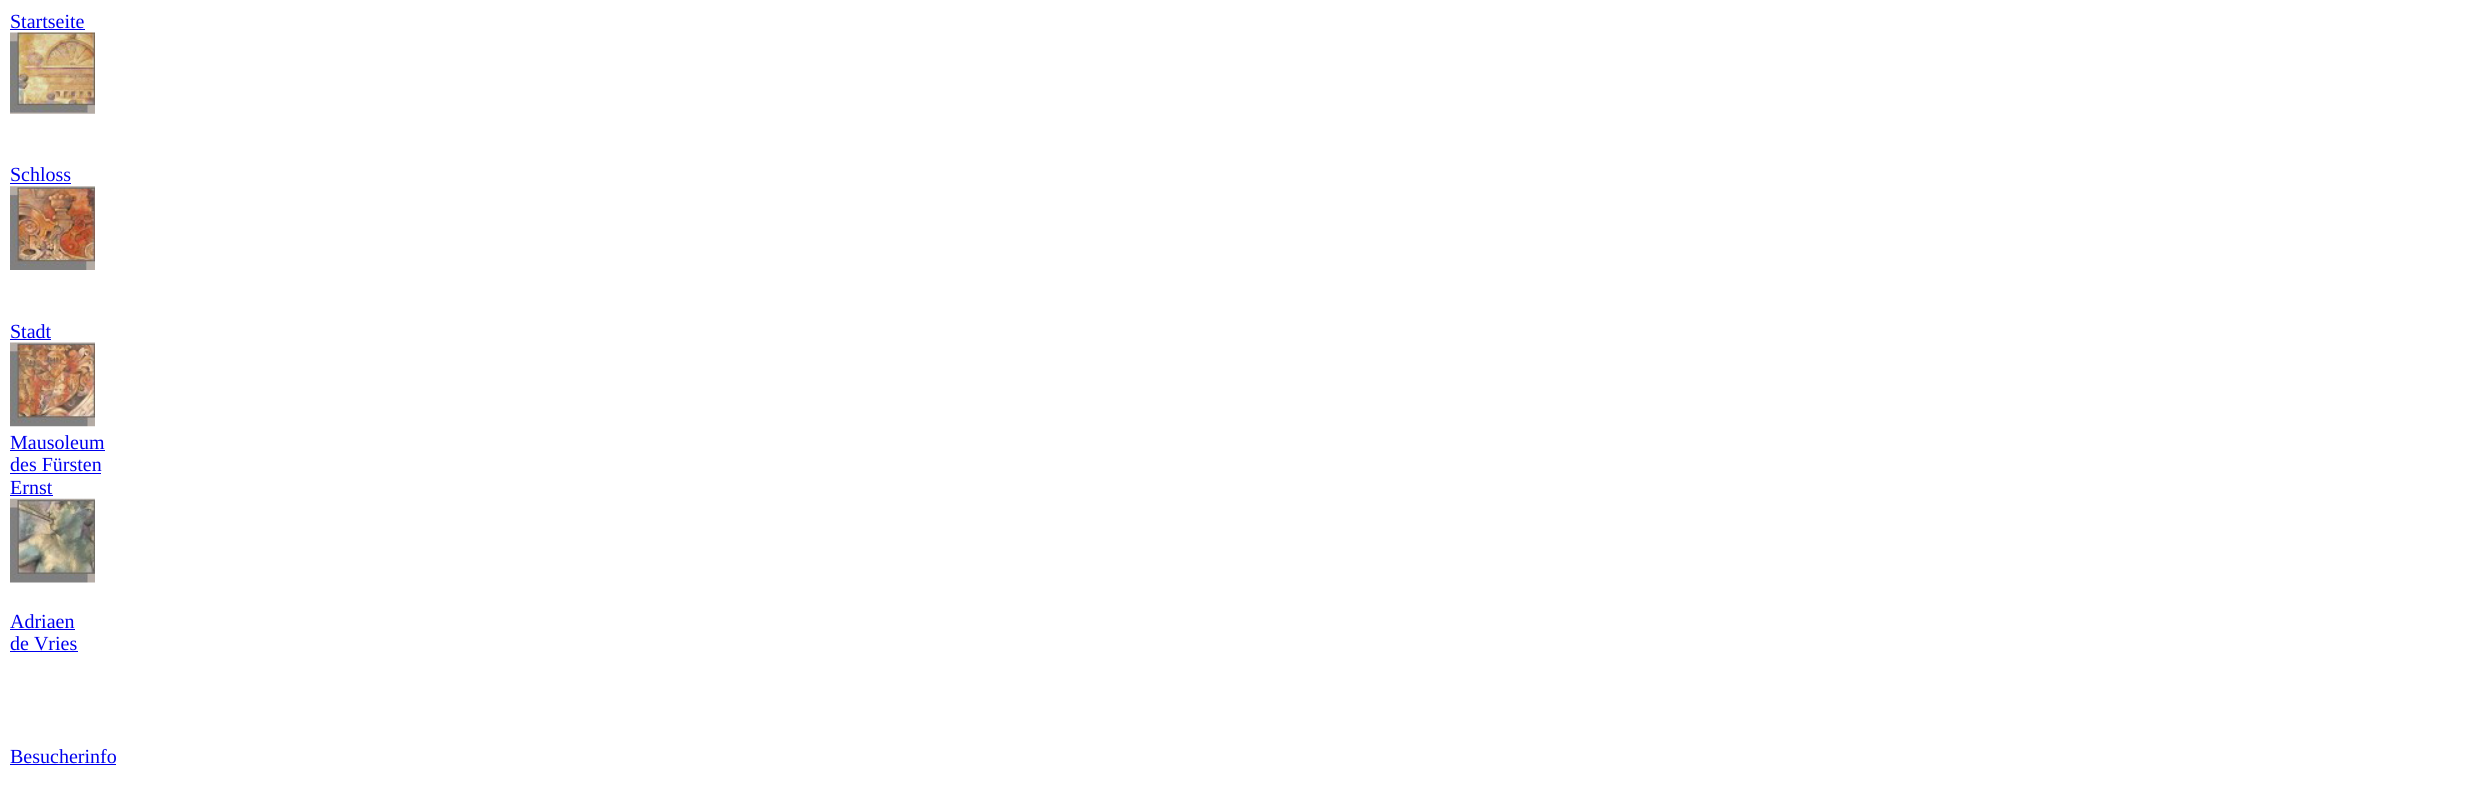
import math
import cairocffi as cairo

surface = cairo.ImageSurface(cairo.FORMAT_RGB24, 2482, 799)
ctx = cairo.Context(surface)
options = cairo.FontOptions()
options.set_hint_metrics(cairo.HINT_METRICS_OFF)
options.set_hint_style(cairo.HINT_STYLE_NONE)
ctx.set_font_options(options)
ctx.set_miter_limit(4)


def rgb(r, g, b):
    ctx.set_source_rgb(r / 255, g / 255, b / 255)


def face(family, size, italic, bold):
    ctx.select_font_face(family, cairo.FONT_SLANT_ITALIC if italic else cairo.FONT_SLANT_NORMAL, cairo.FONT_WEIGHT_BOLD if bold else cairo.FONT_WEIGHT_NORMAL)
    ctx.set_font_size(size)


def label(x, y, s):
    ctx.move_to(x, y)
    ctx.show_text(s)


def rect(x, y, w, h):
    ctx.rectangle(x, y, w, h)
    ctx.fill()


def image(path, x, y, w, h):
    ctx.save()
    ctx.set_source_surface(cairo.ImageSurface.create_from_png(path), x, y)
    ctx.rectangle(x, y, w, h)
    ctx.fill()
    ctx.restore()


rgb(255, 255, 255)
ctx.paint()
face('Liberation Serif', 20, 0, 0)
rgb(0, 0, 238)
label(10, 28, 'Startseite')
rect(10, 29, 75, 1)
image('image0.png', 10, 32, 85, 82)
label(10, 181, 'Schloss')
rect(10, 183, 61, 1)
image('image1.png', 10, 186, 85, 84)
label(10, 338, 'Stadt')
rect(10, 339, 41, 1)
image('image2.png', 10, 342, 85, 85)
label(10, 449, 'Mausoleum')
rect(10, 450, 95, 1)
label(10, 471, 'des Fürsten')
rect(10, 473, 91, 1)
label(10, 494, 'Ernst')
rect(10, 495, 43, 1)
image('image3.png', 10, 498, 85, 85)
label(10, 628, 'Adriaen')
rect(10, 629, 65, 1)
label(10, 650, 'de Vries')
rect(10, 651, 68, 1)
label(10, 763, 'Besucherinfo')
rect(10, 764, 106, 1)
surface.write_to_png('render.png')
